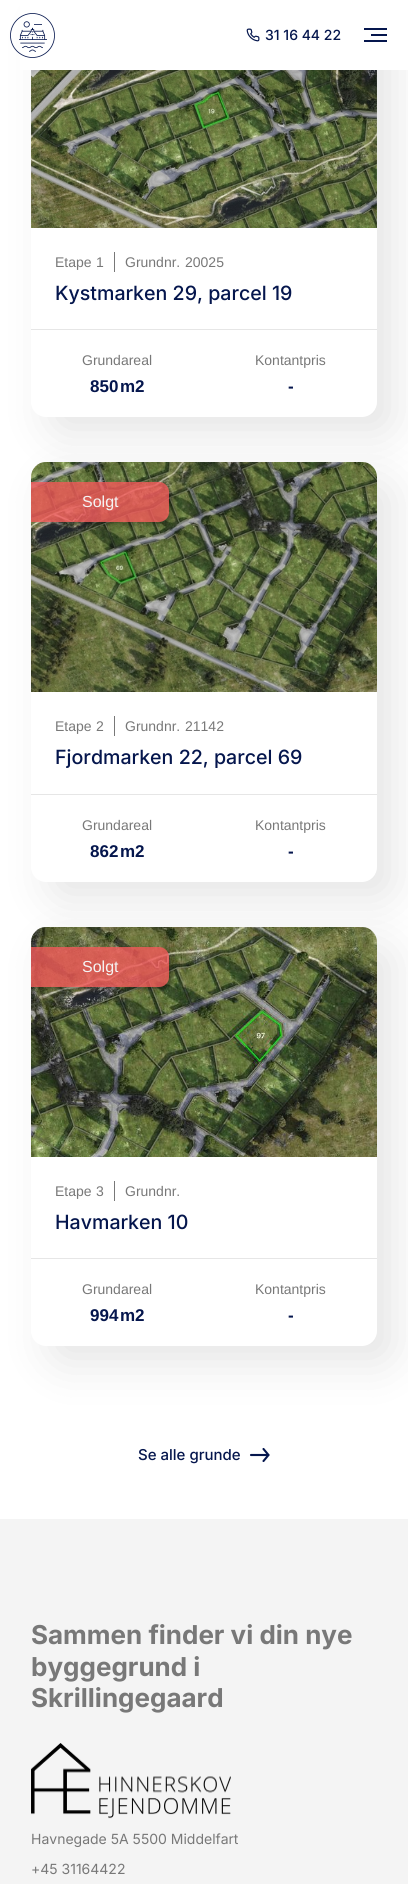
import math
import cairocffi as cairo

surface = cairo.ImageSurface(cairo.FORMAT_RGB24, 408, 1884)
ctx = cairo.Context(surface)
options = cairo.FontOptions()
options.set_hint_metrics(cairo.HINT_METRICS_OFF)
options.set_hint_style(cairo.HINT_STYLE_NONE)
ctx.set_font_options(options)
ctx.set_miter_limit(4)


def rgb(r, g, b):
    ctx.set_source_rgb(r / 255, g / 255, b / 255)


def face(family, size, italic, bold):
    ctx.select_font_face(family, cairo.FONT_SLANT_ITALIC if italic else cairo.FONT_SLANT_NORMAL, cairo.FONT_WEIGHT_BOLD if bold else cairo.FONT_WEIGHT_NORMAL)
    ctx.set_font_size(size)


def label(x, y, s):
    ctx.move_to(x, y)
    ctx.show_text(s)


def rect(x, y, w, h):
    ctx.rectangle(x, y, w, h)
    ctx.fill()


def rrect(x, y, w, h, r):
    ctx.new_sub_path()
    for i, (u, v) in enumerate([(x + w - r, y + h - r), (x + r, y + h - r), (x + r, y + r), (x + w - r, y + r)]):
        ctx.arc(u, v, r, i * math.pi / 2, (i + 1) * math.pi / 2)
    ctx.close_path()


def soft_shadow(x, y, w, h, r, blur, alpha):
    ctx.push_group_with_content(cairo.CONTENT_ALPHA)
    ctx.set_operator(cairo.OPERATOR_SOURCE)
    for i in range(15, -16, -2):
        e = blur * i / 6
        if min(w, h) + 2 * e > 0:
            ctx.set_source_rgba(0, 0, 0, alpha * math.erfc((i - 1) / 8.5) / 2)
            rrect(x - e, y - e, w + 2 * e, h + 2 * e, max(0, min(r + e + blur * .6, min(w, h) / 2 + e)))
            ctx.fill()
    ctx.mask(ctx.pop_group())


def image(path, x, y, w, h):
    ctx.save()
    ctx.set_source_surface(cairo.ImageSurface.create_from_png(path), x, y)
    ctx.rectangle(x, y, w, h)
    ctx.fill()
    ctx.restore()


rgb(255, 255, 255)
ctx.paint()
rgb(0, 0, 0)
soft_shadow(49, 16, 346, 419, 15, 22.5, 0.1)
rgb(255, 255, 255)
rrect(31, -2, 346, 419, 15)
ctx.fill()
rect(20, 0, 388, 70)
image('image0.png', 10, 13, 45, 45)
image('image1.png', 246, 28, 14, 14)
face('Inter Medium', 14, 0, 0)
rgb(5, 22, 77)
label(265, 40, '31 16 44 22')
rect(364, 28, 23, 2)
rect(371, 34, 16, 2)
rect(364, 40, 23, 2)
image('image2.png', 31, 70, 346, 158)
rgb(230, 230, 230)
rect(31, 329, 346, 1)
rgb(120, 120, 120)
rect(114, 252, 1, 20)
face('Liberation Sans', 14, 0, 0)
label(55, 267, 'Etape')
label(96, 267, '1')
label(125, 267, 'Grundnr.')
label(185, 267, '20025')
face('Inter Medium', 19.6, 0, 0)
rgb(5, 22, 77)
label(55, 300, 'Kystmarken 29, parcel 19')
face('Liberation Sans', 14, 0, 0)
rgb(120, 120, 120)
label(82, 365, 'Grundareal')
face('Liberation Sans', 17, 0, 1)
rgb(5, 22, 77)
label(90, 392, '850')
label(120, 392, 'm2')
face('Liberation Sans', 14, 0, 0)
rgb(120, 120, 120)
label(255, 365, 'Kontantpris')
face('Liberation Sans', 17, 0, 1)
rgb(5, 22, 77)
label(288, 392, '-')
rgb(0, 0, 0)
soft_shadow(49, 480, 346, 420, 15, 22.5, 0.1)
rgb(255, 255, 255)
rrect(31, 462, 346, 420, 15)
ctx.fill()
image('image3.png', 31, 462, 346, 230)
ctx.save()
ctx.set_fill_rule(cairo.FILL_RULE_EVEN_ODD)
ctx.new_path()
ctx.move_to(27, 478)
ctx.line_to(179, 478)
ctx.line_to(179, 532)
ctx.line_to(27, 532)
ctx.close_path()
ctx.move_to(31, 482)
ctx.line_to(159, 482)
ctx.curve_to(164.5, 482, 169, 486.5, 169, 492)
ctx.line_to(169, 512)
ctx.curve_to(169, 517.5, 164.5, 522, 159, 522)
ctx.line_to(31, 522)
ctx.close_path()
ctx.clip()
rgb(0, 0, 0)
soft_shadow(34, 485, 138, 40, 10, 2, 0.3)
ctx.restore()
ctx.set_source_rgba(0.945, 0.349, 0.349, 0.8)
ctx.new_path()
ctx.move_to(31, 482)
ctx.line_to(159, 482)
ctx.curve_to(164.5, 482, 169, 486.5, 169, 492)
ctx.line_to(169, 512)
ctx.curve_to(169, 517.5, 164.5, 522, 159, 522)
ctx.line_to(31, 522)
ctx.close_path()
ctx.fill()
face('Liberation Sans', 16, 0, 0)
rgb(244, 244, 244)
label(82, 507, 'Solgt')
rgb(230, 230, 230)
rect(31, 794, 346, 1)
rgb(120, 120, 120)
rect(114, 716, 1, 20)
face('Liberation Sans', 14, 0, 0)
label(55, 731, 'Etape')
label(96, 731, '2')
label(125, 731, 'Grundnr.')
label(185, 731, '21142')
face('Inter Medium', 19.6, 0, 0)
rgb(5, 22, 77)
label(55, 764, 'Fjordmarken 22, parcel 69')
face('Liberation Sans', 14, 0, 0)
rgb(120, 120, 120)
label(82, 830, 'Grundareal')
face('Liberation Sans', 17, 0, 1)
rgb(5, 22, 77)
label(90, 857, '862')
label(120, 857, 'm2')
face('Liberation Sans', 14, 0, 0)
rgb(120, 120, 120)
label(255, 830, 'Kontantpris')
face('Liberation Sans', 17, 0, 1)
rgb(5, 22, 77)
label(288, 857, '-')
rgb(0, 0, 0)
soft_shadow(49, 945, 346, 419, 15, 22.5, 0.1)
rgb(255, 255, 255)
rrect(31, 927, 346, 419, 15)
ctx.fill()
image('image4.png', 31, 927, 346, 230)
ctx.save()
ctx.set_fill_rule(cairo.FILL_RULE_EVEN_ODD)
ctx.new_path()
ctx.move_to(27, 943)
ctx.line_to(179, 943)
ctx.line_to(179, 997)
ctx.line_to(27, 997)
ctx.close_path()
ctx.move_to(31, 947)
ctx.line_to(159, 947)
ctx.curve_to(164.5, 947, 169, 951.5, 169, 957)
ctx.line_to(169, 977)
ctx.curve_to(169, 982.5, 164.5, 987, 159, 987)
ctx.line_to(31, 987)
ctx.close_path()
ctx.clip()
rgb(0, 0, 0)
soft_shadow(34, 950, 138, 40, 10, 2, 0.3)
ctx.restore()
ctx.set_source_rgba(0.945, 0.349, 0.349, 0.8)
ctx.new_path()
ctx.move_to(31, 947)
ctx.line_to(159, 947)
ctx.curve_to(164.5, 947, 169, 951.5, 169, 957)
ctx.line_to(169, 977)
ctx.curve_to(169, 982.5, 164.5, 987, 159, 987)
ctx.line_to(31, 987)
ctx.close_path()
ctx.fill()
face('Liberation Sans', 16, 0, 0)
rgb(244, 244, 244)
label(82, 972, 'Solgt')
rgb(230, 230, 230)
rect(31, 1258, 346, 1)
rgb(120, 120, 120)
rect(114, 1181, 1, 20)
face('Liberation Sans', 14, 0, 0)
label(55, 1196, 'Etape')
label(96, 1196, '3')
label(125, 1196, 'Grundnr.')
face('Inter Medium', 19.6, 0, 0)
rgb(5, 22, 77)
label(55, 1229, 'Havmarken 10')
face('Liberation Sans', 14, 0, 0)
rgb(120, 120, 120)
label(82, 1294, 'Grundareal')
face('Liberation Sans', 17, 0, 1)
rgb(5, 22, 77)
label(90, 1321, '994')
label(120, 1321, 'm2')
face('Liberation Sans', 14, 0, 0)
rgb(120, 120, 120)
label(255, 1294, 'Kontantpris')
face('Liberation Sans', 17, 0, 1)
rgb(5, 22, 77)
label(288, 1321, '-')
face('Inter Medium', 15, 0, 0)
label(138, 1460, 'Se alle grunde')
ctx.new_path()
ctx.move_to(251, 1455)
ctx.line_to(267.5, 1455)
ctx.move_to(263.5, 1449)
ctx.line_to(268.5, 1455)
ctx.line_to(263.5, 1461)
ctx.set_line_width(2.1)
ctx.set_line_cap(cairo.LINE_CAP_ROUND)
ctx.stroke()
rgb(244, 244, 244)
rect(0, 1519, 408, 365)
face('Inter', 26, 0, 1)
rgb(120, 120, 120)
label(31, 1644, 'Sammen finder vi din nye')
label(31, 1676, 'byggegrund i')
label(31, 1707, 'Skrillingegaard')
image('image5.png', 31, 1743, 200, 76)
face('Inter', 14, 0, 0)
label(31, 1844, 'Havnegade 5A 5500 Middelfart')
label(31, 1874, '+45 31164422')
surface.write_to_png('render.png')
